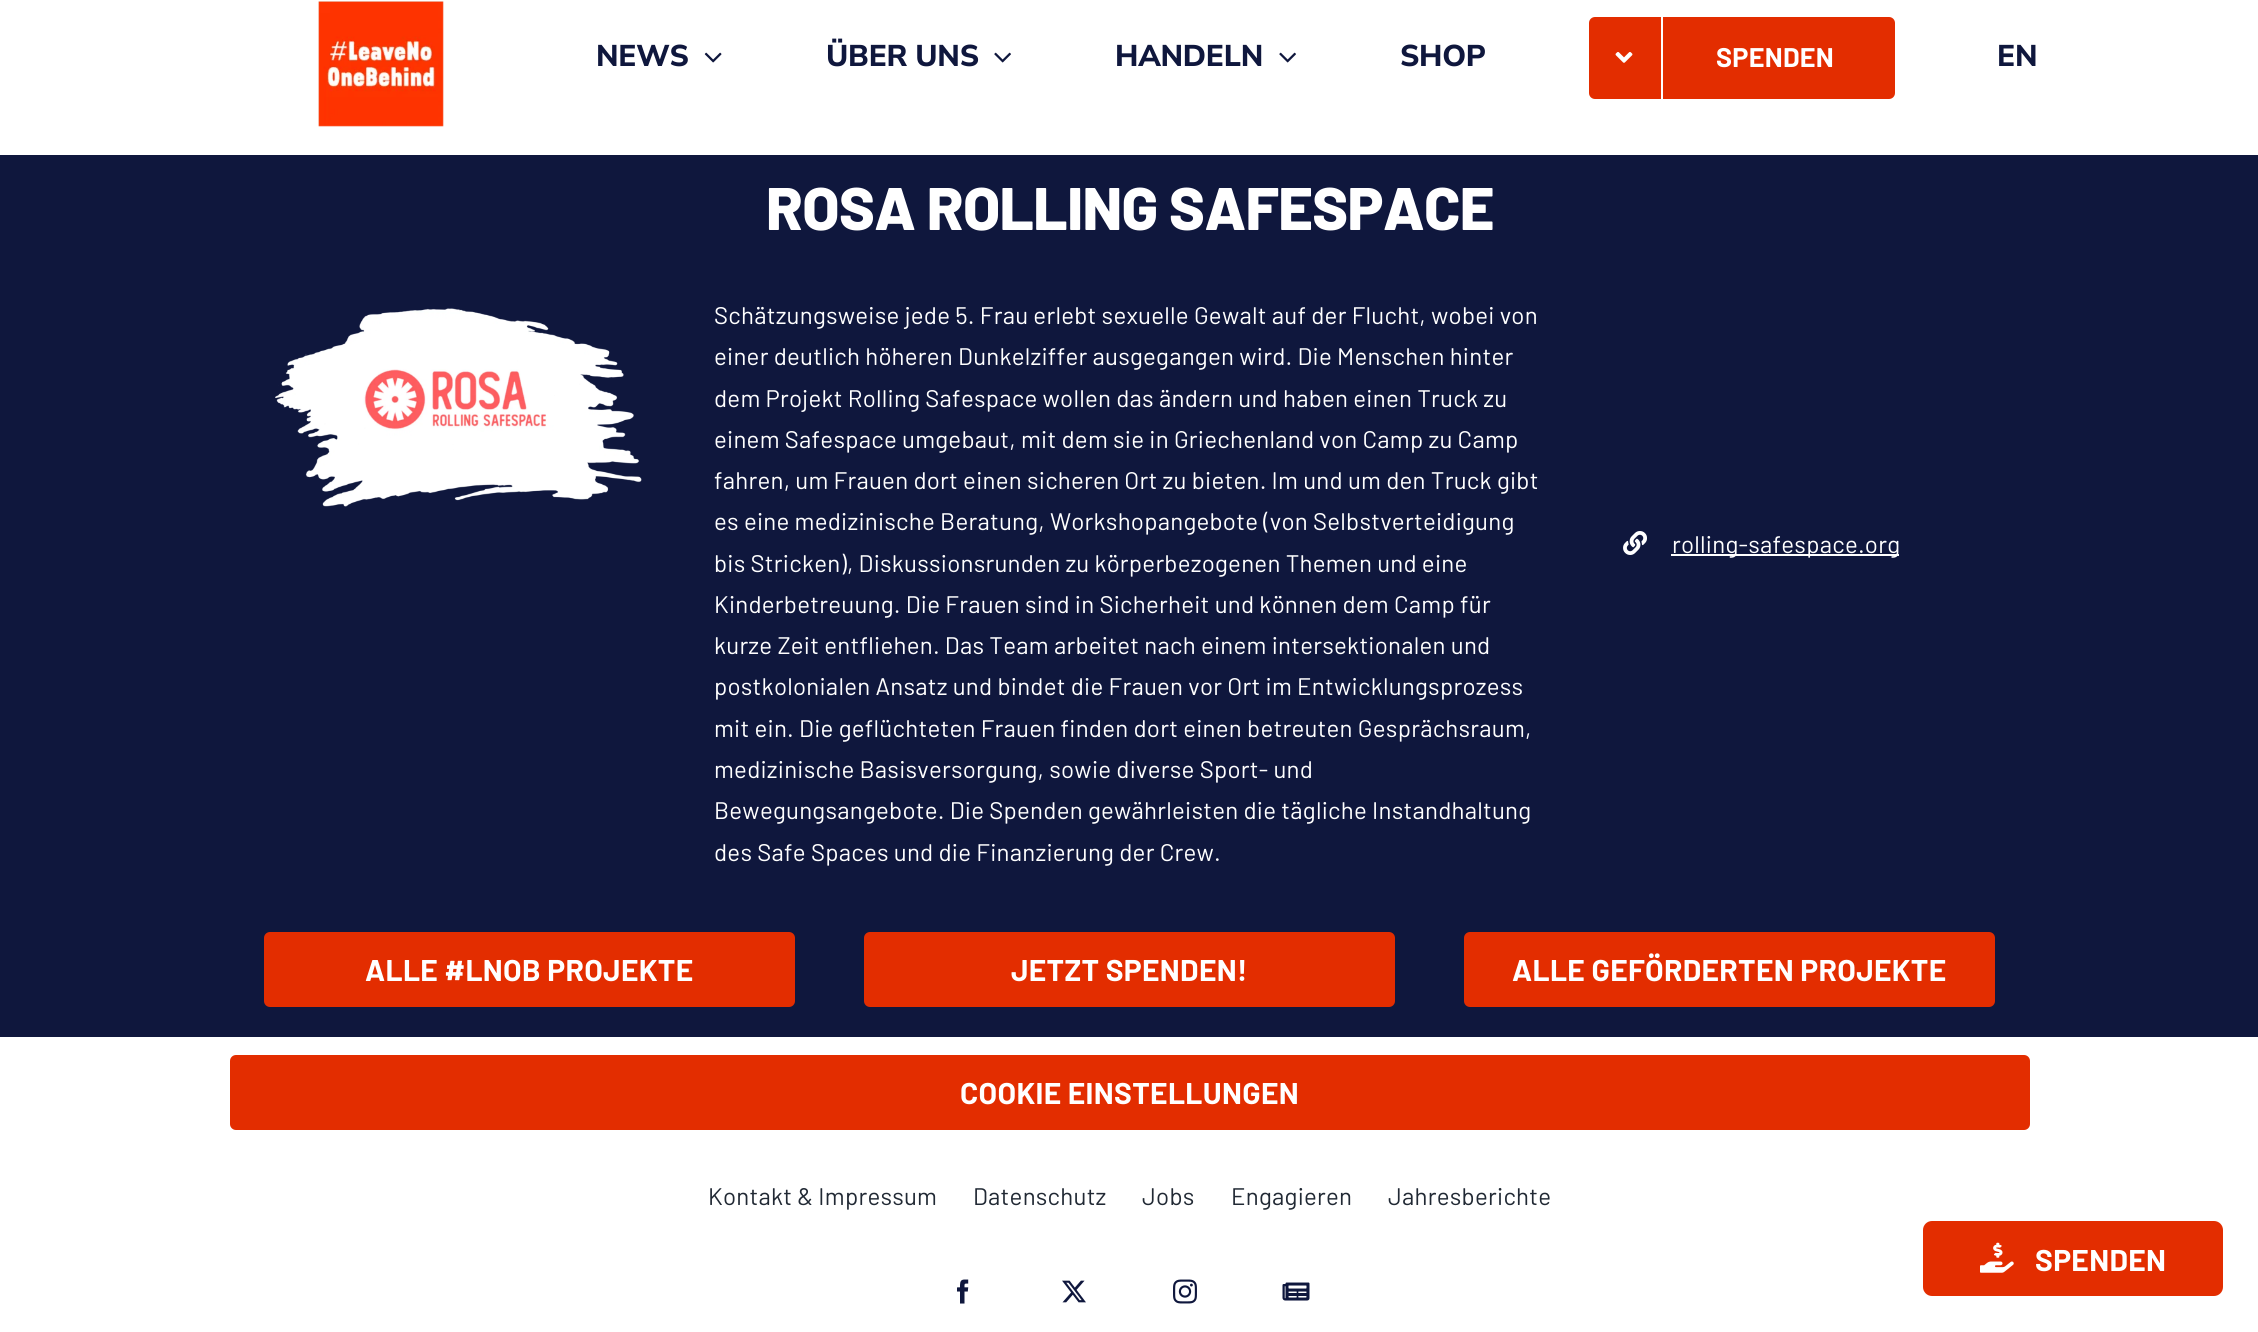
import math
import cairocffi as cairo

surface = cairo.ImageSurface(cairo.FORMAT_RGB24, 2258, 1332)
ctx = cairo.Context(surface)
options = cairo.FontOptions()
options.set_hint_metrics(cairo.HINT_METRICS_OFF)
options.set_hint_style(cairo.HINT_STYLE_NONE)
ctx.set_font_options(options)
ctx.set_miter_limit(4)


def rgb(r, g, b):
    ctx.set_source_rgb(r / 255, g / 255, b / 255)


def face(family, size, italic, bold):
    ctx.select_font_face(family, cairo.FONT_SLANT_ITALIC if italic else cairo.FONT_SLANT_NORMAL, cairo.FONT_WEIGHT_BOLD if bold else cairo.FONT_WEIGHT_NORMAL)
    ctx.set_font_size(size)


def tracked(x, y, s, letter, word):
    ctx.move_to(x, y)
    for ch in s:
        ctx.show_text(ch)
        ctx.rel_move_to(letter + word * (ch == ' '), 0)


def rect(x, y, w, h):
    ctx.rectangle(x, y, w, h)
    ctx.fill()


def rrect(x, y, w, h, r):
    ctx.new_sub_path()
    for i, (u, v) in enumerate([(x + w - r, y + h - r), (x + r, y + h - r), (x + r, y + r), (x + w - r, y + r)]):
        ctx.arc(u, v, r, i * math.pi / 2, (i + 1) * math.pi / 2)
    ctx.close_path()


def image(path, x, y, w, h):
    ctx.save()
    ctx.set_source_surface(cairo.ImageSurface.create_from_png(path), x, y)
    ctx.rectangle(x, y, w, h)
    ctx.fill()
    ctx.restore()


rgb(15, 23, 61)
ctx.paint()
rgb(255, 255, 255)
rect(0, 0, 2258, 155)
image('image0.png', 318, 1, 126, 126)
face('Nunito Sans ExtraBold', 30, 0, 0)
rgb(15, 23, 61)
tracked(596, 66, 'NEWS', -0.25, 0)
image('image1.png', 704, 52, 18, 11)
tracked(826, 66, 'ÜBER UNS', -0.25, 0)
image('image2.png', 994, 52, 17, 11)
tracked(1115, 66, 'HANDELN', -0.25, 0)
image('image2.png', 1279, 52, 17, 11)
tracked(1400, 66, 'SHOP', -0.25, 0)
rgb(227, 45, 0)
rrect(1589, 17, 306, 82, 6)
ctx.fill()
rgb(255, 255, 255)
rect(1661, 17, 2, 82)
image('image3.png', 1615, 52, 18, 11)
face('Barlow', 27, 0, 1)
tracked(1716, 67, 'SPENDEN', 0.25, 0)
face('Nunito Sans ExtraBold', 30, 0, 0)
rgb(15, 23, 61)
tracked(1997, 66, 'EN', -0.25, 0)
face('Barlow ExtraBold', 60, 0, 0)
rgb(255, 255, 255)
tracked(766, 230, 'ROSA ROLLING SAFESPACE', -0.6, 0)
image('image4.png', 275, 308, 367, 199)
face('Barlow', 24, 0, 0)
tracked(714, 324, 'Schätzungsweise jede 5. Frau erlebt sexuelle Gewalt auf der Flucht, wobei von', 0.25, 0)
tracked(714, 365, 'einer deutlich höheren Dunkelziffer ausgegangen wird. Die Menschen hinter', 0.25, 0)
tracked(714, 407, 'dem Projekt Rolling Safespace wollen das ändern und haben einen Truck zu', 0.25, 0)
tracked(714, 448, 'einem Safespace umgebaut, mit dem sie in Griechenland von Camp zu Camp', 0.25, 0)
tracked(714, 489, 'fahren, um Frauen dort einen sicheren Ort zu bieten. Im und um den Truck gibt', 0.25, 0)
tracked(714, 530, 'es eine medizinische Beratung, Workshopangebote (von Selbstverteidigung', 0.25, 0)
tracked(714, 572, 'bis Stricken), Diskussionsrunden zu körperbezogenen Themen und eine', 0.25, 0)
tracked(714, 613, 'Kinderbetreuung. Die Frauen sind in Sicherheit und können dem Camp für', 0.25, 0)
tracked(714, 654, 'kurze Zeit entfliehen. Das Team arbeitet nach einem intersektionalen und', 0.25, 0)
tracked(714, 695, 'postkolonialen Ansatz und bindet die Frauen vor Ort im Entwicklungsprozess', 0.25, 0)
tracked(714, 737, 'mit ein. Die geflüchteten Frauen finden dort einen betreuten Gesprächsraum,', 0.25, 0)
tracked(714, 778, 'medizinische Basisversorgung, sowie diverse Sport- und', 0.25, 0)
tracked(714, 819, 'Bewegungsangebote. Die Spenden gewährleisten die tägliche Instandhaltung', 0.25, 0)
tracked(714, 861, 'des Safe Spaces und die Finanzierung der Crew.', 0.25, 0)
image('image5.png', 1623, 531, 24, 24)
rect(1671, 554, 228, 2)
tracked(1672, 553, 'rolling-safespace.org', 0.25, 0)
rgb(227, 45, 0)
rrect(264, 932, 531, 75, 6)
ctx.fill()
face('Barlow', 30, 0, 1)
rgb(255, 255, 255)
tracked(365, 981, 'ALLE #LNOB PROJEKTE', 0.3, 0)
rgb(227, 45, 0)
rrect(864, 932, 531, 75, 6)
ctx.fill()
rgb(255, 255, 255)
tracked(1011, 981, 'JETZT SPENDEN!', 0.3, 0)
rgb(227, 45, 0)
rrect(1464, 932, 531, 75, 6)
ctx.fill()
rgb(255, 255, 255)
tracked(1512, 981, 'ALLE GEFÖRDERTEN PROJEKTE', 0.3, 0)
rect(0, 1037, 2258, 295)
rgb(227, 45, 0)
rrect(230, 1055, 1800, 75, 6)
ctx.fill()
rgb(255, 255, 255)
tracked(960, 1104, 'COOKIE EINSTELLUNGEN', 0.3, 0)
face('Barlow', 24, 0, 0)
rgb(33, 41, 52)
tracked(708, 1205, 'Kontakt & Impressum', 0.25, 0)
tracked(973, 1205, 'Datenschutz', 0.25, 0)
tracked(1142, 1205, 'Jobs', 0.25, 0)
tracked(1231, 1205, 'Engagieren', 0.25, 0)
tracked(1388, 1205, 'Jahresberichte', 0.25, 0)
image('image6.png', 957, 1279, 12, 25)
image('image7.png', 1062, 1280, 24, 23)
image('image8.png', 1173, 1279, 24, 25)
image('image9.png', 1282, 1282, 28, 19)
rgb(227, 45, 0)
rrect(1923, 1221, 300, 75, 9)
ctx.fill()
image('image10.png', 1980, 1242, 34, 31)
face('Barlow', 30, 0, 1)
rgb(255, 255, 255)
tracked(2035, 1271, 'SPENDEN', 0.3, 0)
surface.write_to_png('render.png')
